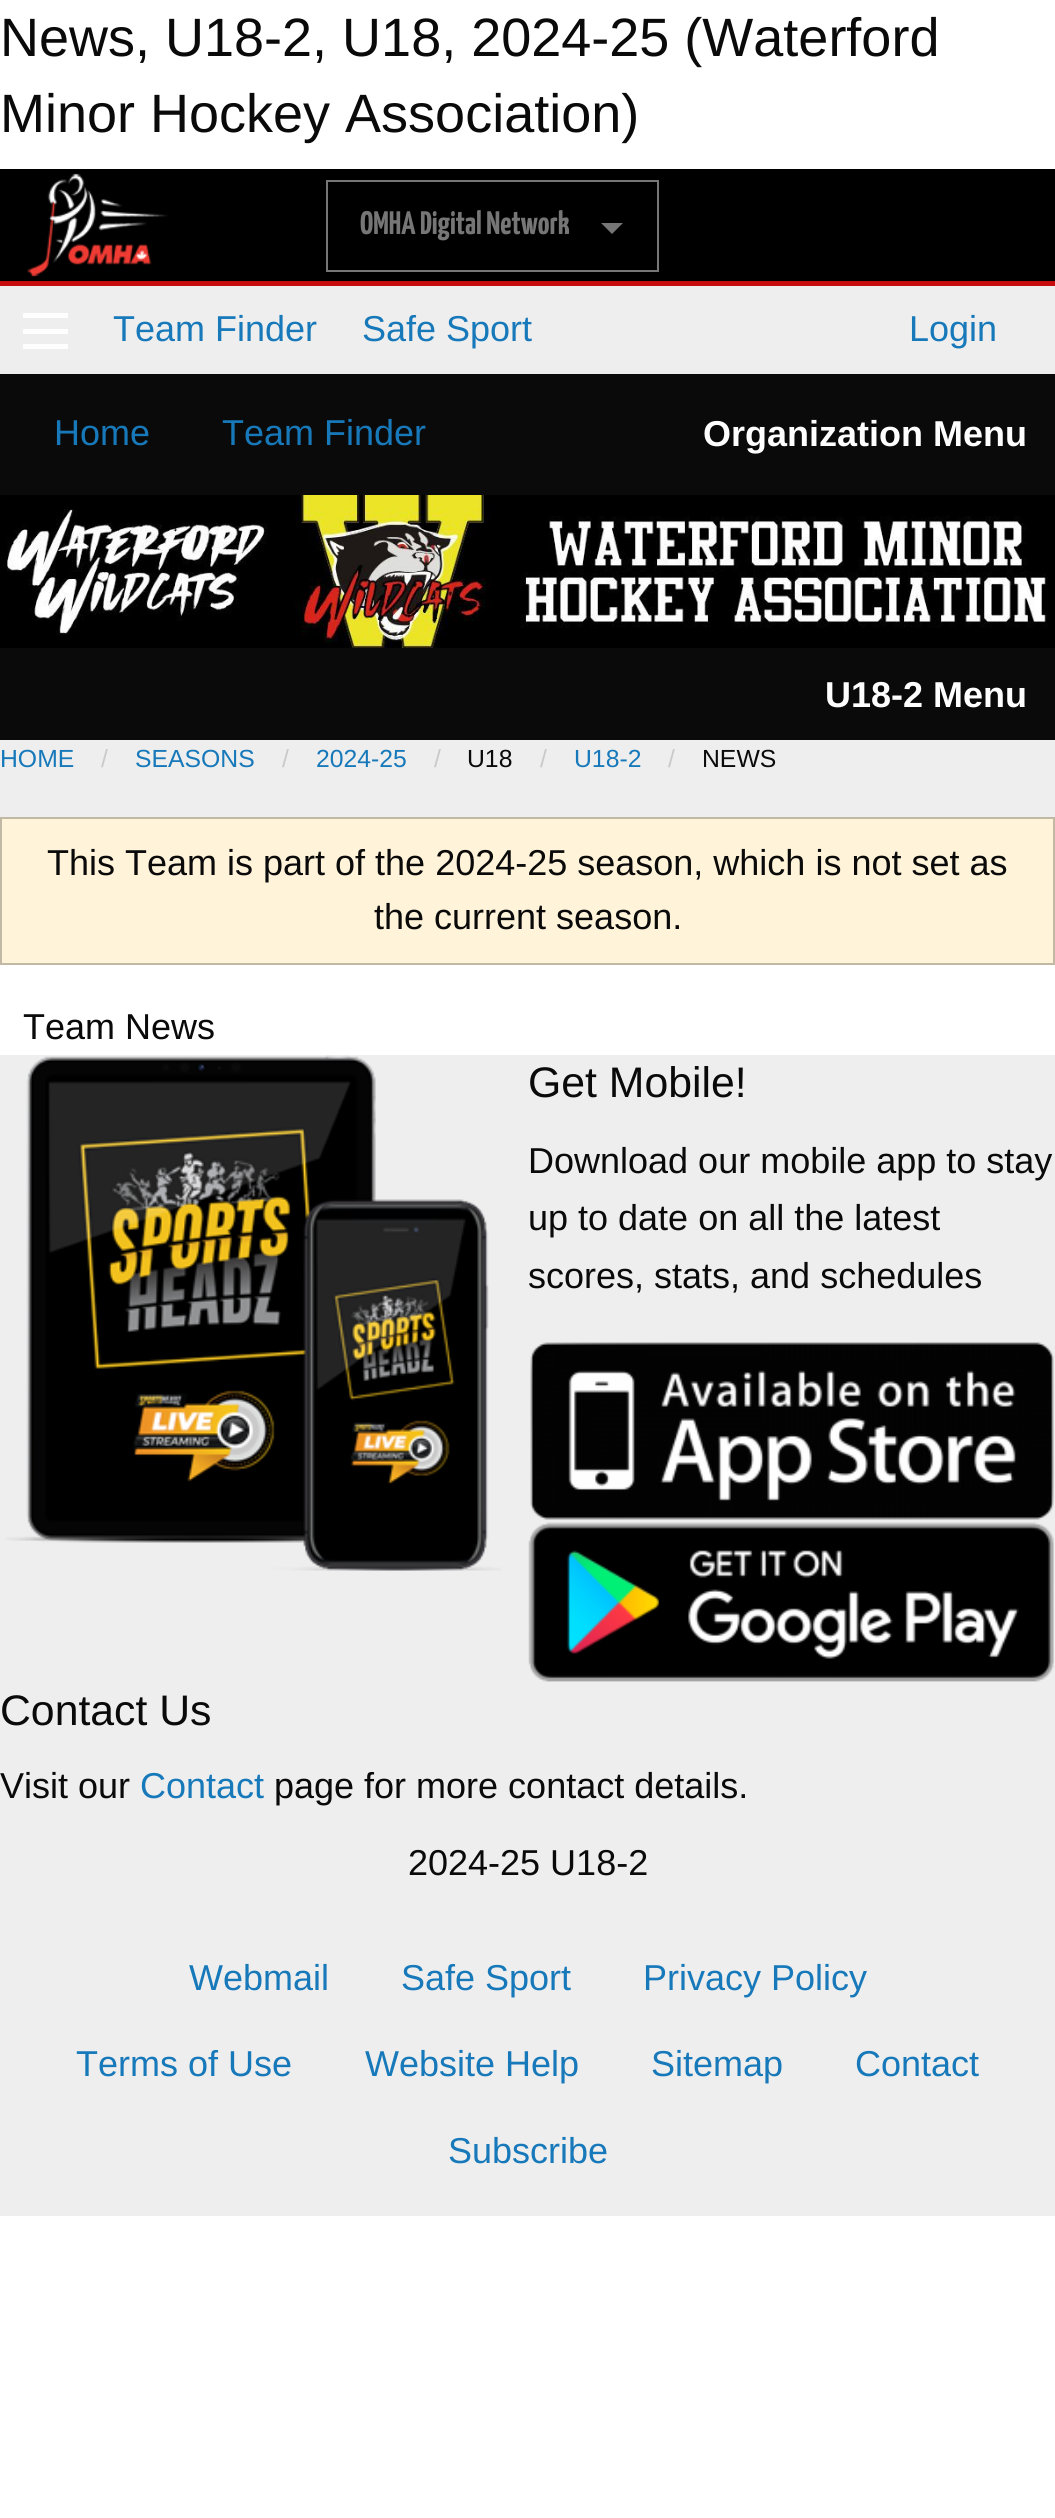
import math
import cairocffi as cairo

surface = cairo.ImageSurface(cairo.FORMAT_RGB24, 1055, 2518)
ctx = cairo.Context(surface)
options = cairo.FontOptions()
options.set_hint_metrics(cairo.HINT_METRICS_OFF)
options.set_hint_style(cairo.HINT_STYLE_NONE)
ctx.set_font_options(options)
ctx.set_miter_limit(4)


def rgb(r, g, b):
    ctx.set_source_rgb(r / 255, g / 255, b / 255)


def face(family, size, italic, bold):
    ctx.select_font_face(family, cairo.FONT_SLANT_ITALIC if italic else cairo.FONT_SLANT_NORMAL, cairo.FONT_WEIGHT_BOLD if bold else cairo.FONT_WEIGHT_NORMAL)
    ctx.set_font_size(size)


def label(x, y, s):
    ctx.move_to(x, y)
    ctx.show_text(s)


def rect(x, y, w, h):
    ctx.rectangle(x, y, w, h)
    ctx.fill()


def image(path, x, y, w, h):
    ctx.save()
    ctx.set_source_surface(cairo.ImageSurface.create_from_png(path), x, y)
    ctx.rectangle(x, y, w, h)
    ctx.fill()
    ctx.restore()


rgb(255, 255, 255)
ctx.paint()
face('Liberation Sans', 54, 0, 0)
rgb(10, 10, 10)
label(0, 56, 'News, U18-2, U18, 2024-25 (Waterford')
label(0, 132, 'Minor Hockey Association)')
rgb(0, 0, 0)
rect(0, 169, 1055, 112)
rgb(198, 12, 12)
rect(0, 281, 1055, 5)
image('image0.png', 27, 173, 141, 104)
ctx.rectangle(327, 181, 331, 90)
rgb(118, 118, 118)
ctx.stroke()
face('Yanone Kaffeesatz ExtraLight', 32.5, 0, 0)
label(360, 234, 'OMHA Digital Network')
ctx.new_path()
ctx.move_to(601, 223)
ctx.line_to(623, 223)
ctx.line_to(612, 234)
ctx.close_path()
ctx.fill()
rgb(238, 238, 238)
rect(0, 286, 1055, 1930)
rgb(254, 254, 254)
rect(23, 344, 45, 5)
rect(23, 329, 45, 5)
rect(23, 313, 45, 5)
face('Liberation Sans', 36, 0, 0)
rgb(23, 121, 186)
label(113, 341, 'Team Finder')
label(362, 341, 'Safe Sport')
label(909, 341, 'Login')
rgb(10, 10, 10)
rect(0, 374, 1055, 121)
rgb(23, 121, 186)
label(54, 445, 'Home')
label(222, 445, 'Team Finder')
face('Liberation Sans', 36, 0, 1)
rgb(254, 254, 254)
label(703, 446, 'Organization Menu')
rgb(0, 0, 0)
rect(0, 495, 1055, 153)
image('image1.png', 7, 495, 1041, 153)
rgb(10, 10, 10)
rect(0, 648, 1055, 92)
rgb(254, 254, 254)
label(825, 707, 'U18-2 Menu')
face('Liberation Sans', 24.75, 0, 0)
rgb(23, 121, 186)
label(0, 767, 'HOME')
rgb(202, 202, 202)
label(101, 767, '/')
rgb(23, 121, 186)
label(135, 767, 'SEASONS')
rgb(202, 202, 202)
label(282, 767, '/')
rgb(23, 121, 186)
label(316, 767, '2024-25')
rgb(202, 202, 202)
label(434, 767, '/')
rgb(10, 10, 10)
label(467, 767, 'U18')
rgb(202, 202, 202)
label(540, 767, '/')
rgb(23, 121, 186)
label(574, 767, 'U18-2')
rgb(202, 202, 202)
label(668, 767, '/')
rgb(10, 10, 10)
label(702, 767, 'NEWS')
rgb(255, 255, 255)
rect(0, 965, 1055, 90)
rgb(255, 243, 217)
ctx.rectangle(1, 818, 1053, 146)
ctx.fill_preserve()
rgb(194, 185, 165)
ctx.stroke()
face('Liberation Sans', 36, 0, 0)
rgb(10, 10, 10)
label(47, 875, 'This Team is part of the 2024-25 season, which is not set as')
label(374, 929, 'the current season.')
label(23, 1039, 'Team News')
image('image2.png', 6, 1055, 495, 516)
face('Liberation Sans', 42.75, 0, 0)
label(528, 1097, 'Get Mobile!')
face('Liberation Sans', 36, 0, 0)
label(528, 1173, 'Download our mobile app to stay')
label(528, 1230, 'up to date on all the latest')
label(528, 1288, 'scores, stats, and schedules')
image('image3.png', 530, 1342, 524, 178)
image('image4.png', 528, 1522, 526, 160)
face('Liberation Sans', 42.75, 0, 0)
label(0, 1725, 'Contact Us')
face('Liberation Sans', 36, 0, 0)
label(0, 1798, 'Visit our')
rgb(23, 121, 186)
label(140, 1798, 'Contact')
rgb(10, 10, 10)
label(274, 1798, 'page for more contact details.')
label(408, 1875, '2024-25 U18-2')
rgb(23, 121, 186)
label(189, 1990, 'Webmail')
label(401, 1990, 'Safe Sport')
label(643, 1990, 'Privacy Policy')
label(76, 2076, 'Terms of Use')
label(365, 2076, 'Website Help')
label(651, 2076, 'Sitemap')
label(855, 2076, 'Contact')
label(448, 2163, 'Subscribe')
surface.write_to_png('render.png')
